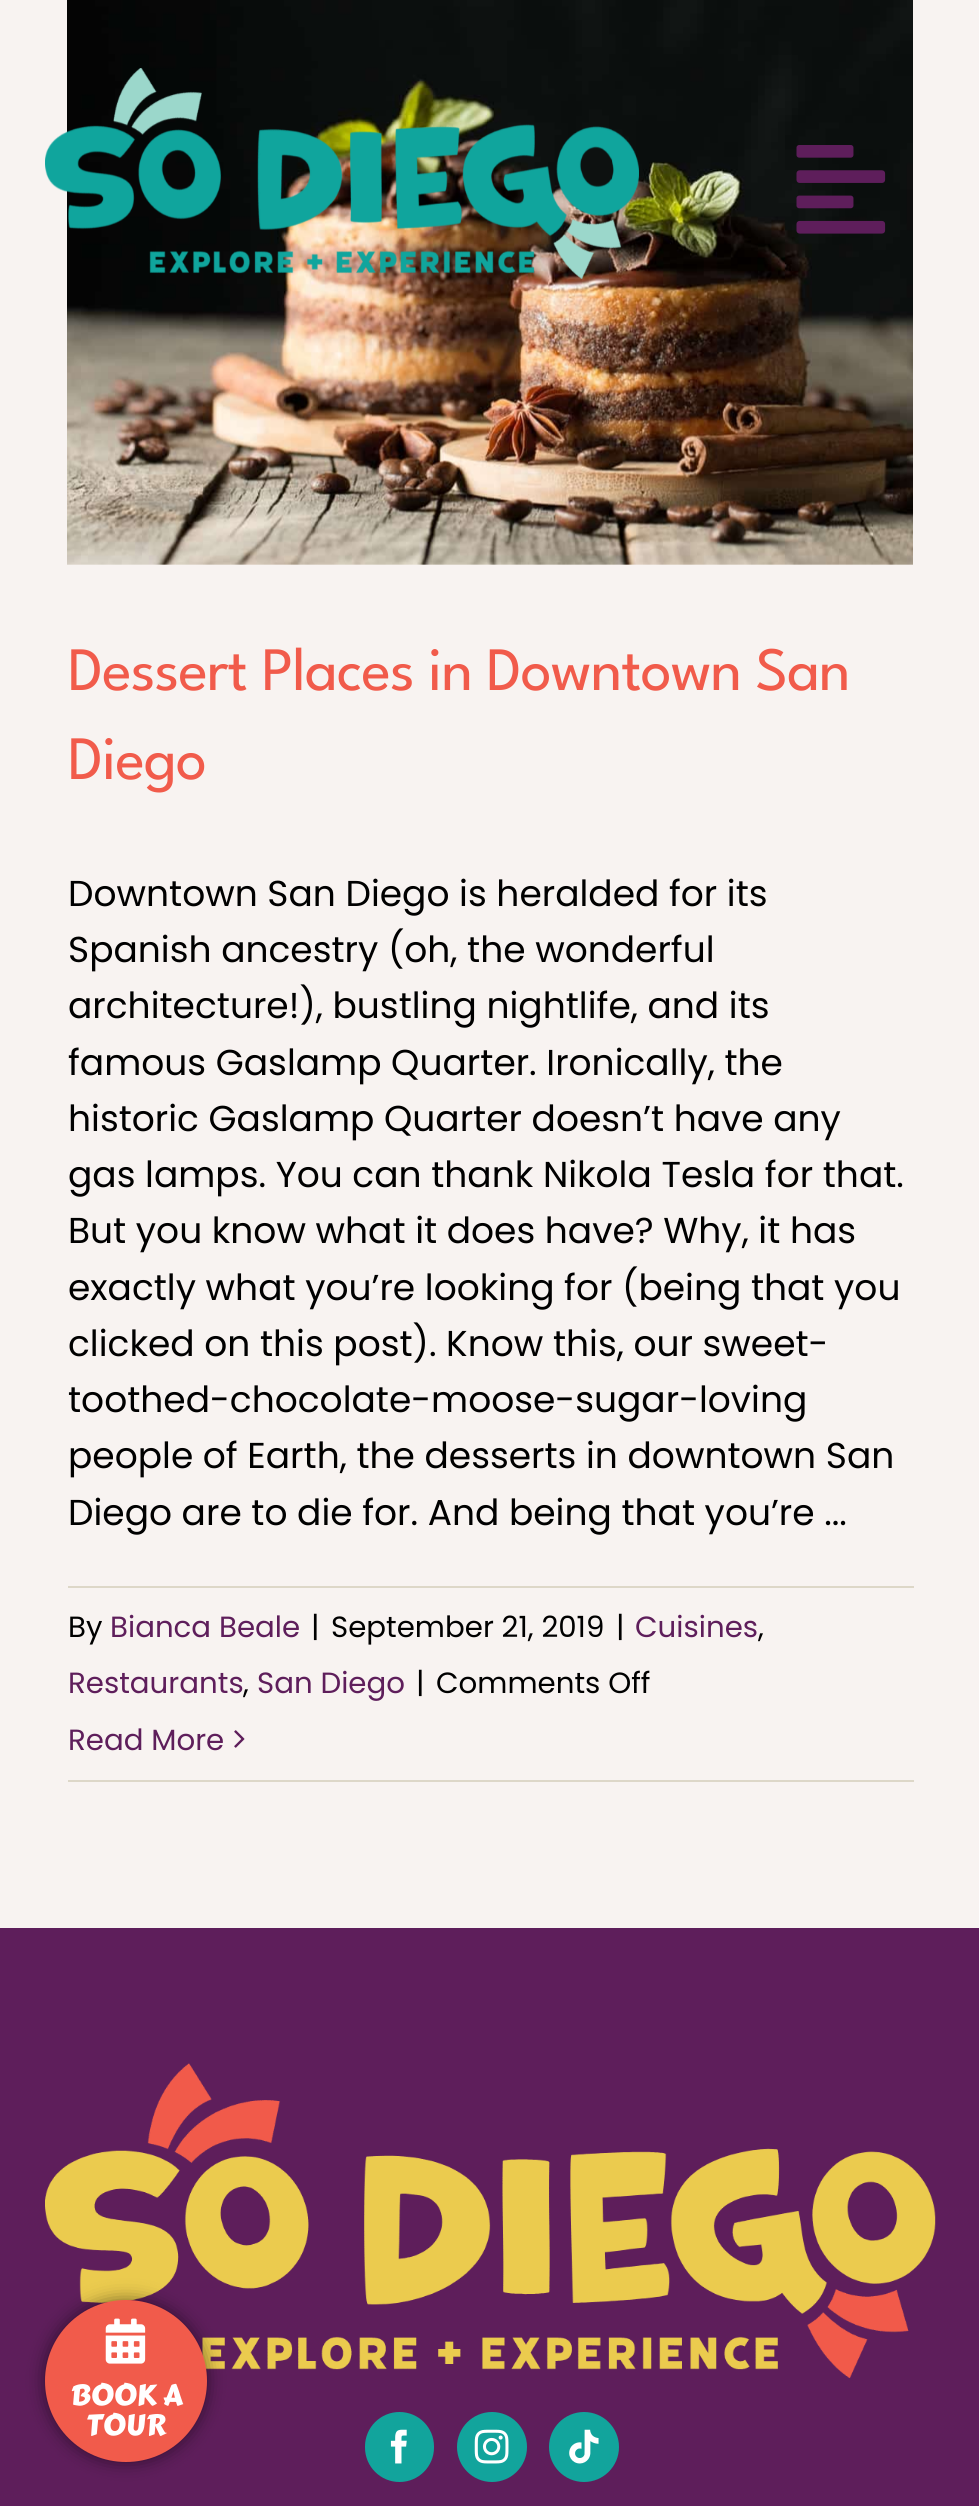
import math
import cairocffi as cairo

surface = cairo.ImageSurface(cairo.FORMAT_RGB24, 979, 2506)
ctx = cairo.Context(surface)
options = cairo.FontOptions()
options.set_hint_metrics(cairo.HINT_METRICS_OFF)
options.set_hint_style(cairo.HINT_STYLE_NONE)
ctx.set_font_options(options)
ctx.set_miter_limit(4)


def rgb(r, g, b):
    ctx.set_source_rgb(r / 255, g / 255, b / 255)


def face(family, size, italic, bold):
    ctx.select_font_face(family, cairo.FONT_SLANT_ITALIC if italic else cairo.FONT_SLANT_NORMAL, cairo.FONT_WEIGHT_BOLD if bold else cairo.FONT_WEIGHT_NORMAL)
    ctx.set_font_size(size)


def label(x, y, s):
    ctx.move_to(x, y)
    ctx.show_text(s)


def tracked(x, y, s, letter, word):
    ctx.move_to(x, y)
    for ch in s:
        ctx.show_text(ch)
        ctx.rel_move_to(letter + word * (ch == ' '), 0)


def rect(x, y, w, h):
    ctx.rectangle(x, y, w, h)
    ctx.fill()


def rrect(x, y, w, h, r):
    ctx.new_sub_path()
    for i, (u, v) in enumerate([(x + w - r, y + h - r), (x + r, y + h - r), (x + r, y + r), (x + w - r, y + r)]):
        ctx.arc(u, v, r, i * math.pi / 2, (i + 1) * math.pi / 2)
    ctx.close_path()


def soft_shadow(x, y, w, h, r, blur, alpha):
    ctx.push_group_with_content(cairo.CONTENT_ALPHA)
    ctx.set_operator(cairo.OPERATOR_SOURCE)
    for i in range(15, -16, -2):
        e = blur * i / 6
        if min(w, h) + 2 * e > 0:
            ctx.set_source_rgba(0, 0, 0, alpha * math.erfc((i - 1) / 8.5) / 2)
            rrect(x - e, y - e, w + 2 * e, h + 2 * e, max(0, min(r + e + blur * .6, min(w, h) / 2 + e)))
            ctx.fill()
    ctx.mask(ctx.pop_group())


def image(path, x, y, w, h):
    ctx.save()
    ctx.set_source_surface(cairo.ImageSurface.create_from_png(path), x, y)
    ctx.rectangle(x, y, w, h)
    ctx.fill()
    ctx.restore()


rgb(248, 243, 241)
ctx.paint()
image('image2.png', 67, 0, 846, 565)
image('image0.png', 45, 68, 594, 211)
image('image1.png', 796, 145, 90, 89)
face('League Spartan', 61.6, 0, 0)
rgb(241, 91, 75)
tracked(68, 690, 'Dessert Places in Downtown San', -0.9, 0)
tracked(68, 779, 'Diego', -0.9, 0)
face('Poppins', 36, 0, 0)
rgb(0, 0, 0)
label(68, 906, 'Downtown San Diego is heralded for its')
label(68, 962, 'Spanish ancestry (oh, the wonderful')
label(68, 1018, 'architecture!), bustling nightlife, and its')
label(68, 1075, 'famous Gaslamp Quarter. Ironically, the')
label(68, 1131, 'historic Gaslamp Quarter doesn’t have any')
label(68, 1187, 'gas lamps. You can thank Nikola Tesla for that.')
label(68, 1243, 'But you know what it does have? Why, it has')
label(68, 1300, 'exactly what you’re looking for (being that you')
label(68, 1356, 'clicked on this post). Know this, our sweet-')
label(68, 1412, 'toothed-chocolate-moose-sugar-loving')
label(68, 1468, 'people of Earth, the desserts in downtown San')
label(68, 1525, 'Diego are to die for. And being that you’re ...')
rgb(221, 215, 200)
rect(68, 1586, 846, 2)
rect(68, 1780, 846, 2)
face('Poppins', 29.25, 0, 0)
rgb(0, 0, 0)
label(68, 1637, 'By')
rgb(94, 30, 91)
label(110, 1637, 'Bianca Beale')
rgb(0, 0, 0)
label(311, 1637, '|')
label(331, 1637, 'September 21, 2019')
label(616, 1637, '|')
rgb(94, 30, 91)
label(635, 1637, 'Cuisines')
rgb(0, 0, 0)
label(758, 1637, ',')
rgb(94, 30, 91)
label(68, 1693, 'Restaurants')
rgb(0, 0, 0)
label(243, 1693, ',')
rgb(94, 30, 91)
label(257, 1693, 'San Diego')
rgb(0, 0, 0)
label(416, 1693, '|')
label(436, 1693, 'Comments Off')
rgb(94, 30, 91)
label(68, 1750, 'Read More')
image('image3.png', 234, 1730, 11, 18)
rect(0, 1928, 979, 578)
image('image4.png', 45, 2063, 891, 316)
rgb(18, 164, 156)
rrect(365, 2412, 69, 70, 34.5)
ctx.fill()
image('image5.png', 390, 2429, 17, 35)
ctx.arc(492, 2447, 35, 0, 2 * math.pi)
ctx.fill()
image('image6.png', 474, 2429, 35, 35)
ctx.arc(584, 2447, 35, 0, 2 * math.pi)
ctx.fill()
image('image7.png', 569, 2429, 30, 35)
rgb(0, 0, 0)
soft_shadow(45, 2300, 162, 162, 81, 9, 0.5)
rgb(241, 91, 75)
ctx.arc(126, 2381, 81, 0, 2 * math.pi)
ctx.fill()
image('image8.png', 105, 2318, 41, 46)
face('Carter One', 29.25, 0, 0)
rgb(255, 255, 255)
label(70, 2405, 'BOOK A')
label(86, 2435, 'TOUR')
surface.write_to_png('render.png')
